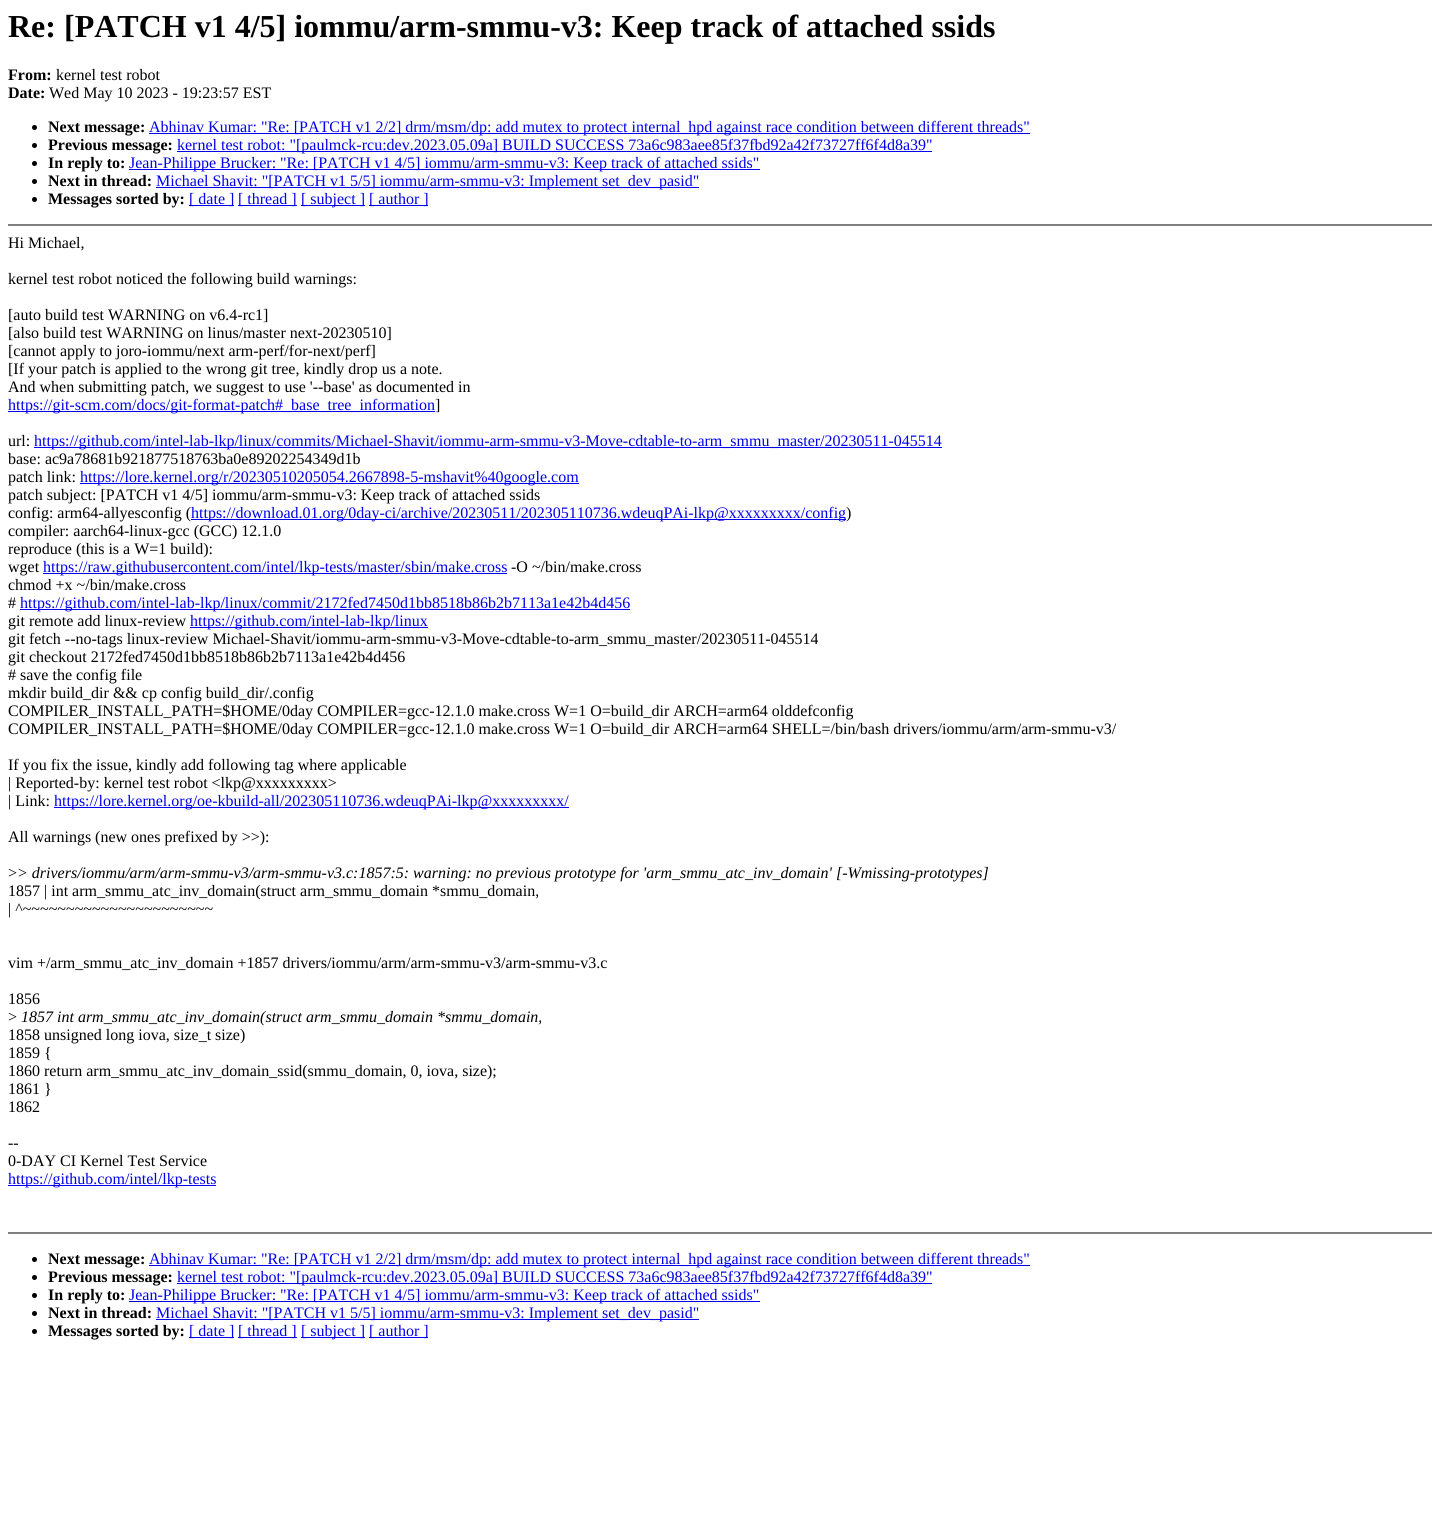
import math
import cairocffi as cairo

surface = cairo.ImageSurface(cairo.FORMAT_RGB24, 1440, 1524)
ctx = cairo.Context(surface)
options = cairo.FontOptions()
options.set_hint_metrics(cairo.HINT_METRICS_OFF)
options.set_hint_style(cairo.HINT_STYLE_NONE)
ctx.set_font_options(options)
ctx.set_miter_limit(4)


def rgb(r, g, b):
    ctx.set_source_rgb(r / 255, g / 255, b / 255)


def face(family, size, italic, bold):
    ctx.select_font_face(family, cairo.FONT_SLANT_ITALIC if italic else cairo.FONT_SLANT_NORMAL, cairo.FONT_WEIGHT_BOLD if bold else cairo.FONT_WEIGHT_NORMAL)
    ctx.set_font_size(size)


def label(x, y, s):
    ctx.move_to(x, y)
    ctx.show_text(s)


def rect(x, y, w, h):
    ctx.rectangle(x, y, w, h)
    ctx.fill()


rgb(255, 255, 255)
ctx.paint()
face('Liberation Serif', 32, 0, 1)
rgb(0, 0, 0)
label(8, 37, 'Re: [PATCH v1 4/5] iommu/arm-smmu-v3: Keep track of attached ssids')
face('Liberation Serif', 16, 0, 1)
label(8, 80, 'From:')
face('Liberation Serif', 16, 0, 0)
label(56, 80, 'kernel test robot')
face('Liberation Serif', 16, 0, 1)
label(8, 98, 'Date:')
face('Liberation Serif', 16, 0, 0)
label(49, 98, 'Wed May 10 2023 - 19:23:57 EST')
ctx.new_path()
ctx.arc(34.5, 127.5, 2.5, 0, 2 * math.pi)
ctx.fill()
face('Liberation Serif', 16, 0, 1)
label(48, 132, 'Next message:')
rgb(0, 0, 238)
rect(149, 133, 881, 1)
face('Liberation Serif', 16, 0, 0)
label(149, 132, 'Abhinav Kumar: "Re: [PATCH v1 2/2] drm/msm/dp: add mutex to protect internal_hpd against race condition between different threads"')
rgb(0, 0, 0)
ctx.new_path()
ctx.arc(34.5, 145.5, 2.5, 0, 2 * math.pi)
ctx.fill()
face('Liberation Serif', 16, 0, 1)
label(48, 150, 'Previous message:')
rgb(0, 0, 238)
rect(177, 151, 755, 1)
face('Liberation Serif', 16, 0, 0)
label(177, 150, 'kernel test robot: "[paulmck-rcu:dev.2023.05.09a] BUILD SUCCESS 73a6c983aee85f37fbd92a42f73727ff6f4d8a39"')
rgb(0, 0, 0)
ctx.new_path()
ctx.arc(34.5, 163.5, 2.5, 0, 2 * math.pi)
ctx.fill()
face('Liberation Serif', 16, 0, 1)
label(48, 168, 'In reply to:')
rgb(0, 0, 238)
rect(129, 169, 631, 1)
face('Liberation Serif', 16, 0, 0)
label(129, 168, 'Jean-Philippe Brucker: "Re: [PATCH v1 4/5] iommu/arm-smmu-v3: Keep track of attached ssids"')
rgb(0, 0, 0)
ctx.new_path()
ctx.arc(34.5, 181.5, 2.5, 0, 2 * math.pi)
ctx.fill()
face('Liberation Serif', 16, 0, 1)
label(48, 186, 'Next in thread:')
rgb(0, 0, 238)
rect(156, 187, 543, 1)
face('Liberation Serif', 16, 0, 0)
label(156, 186, 'Michael Shavit: "[PATCH v1 5/5] iommu/arm-smmu-v3: Implement set_dev_pasid"')
rgb(0, 0, 0)
ctx.new_path()
ctx.arc(34.5, 199.5, 2.5, 0, 2 * math.pi)
ctx.fill()
face('Liberation Serif', 16, 0, 1)
label(48, 204, 'Messages sorted by:')
rgb(0, 0, 238)
rect(189, 205, 45, 1)
face('Liberation Serif', 16, 0, 0)
label(189, 204, '[ date ]')
rect(238, 205, 59, 1)
label(238, 204, '[ thread ]')
rect(301, 205, 64, 1)
label(301, 204, '[ subject ]')
rect(369, 205, 59, 1)
label(369, 204, '[ author ]')
rgb(128, 128, 128)
rect(8, 224, 1424, 2)
rgb(0, 0, 0)
label(8, 248, 'Hi Michael,')
label(8, 284, 'kernel test robot noticed the following build warnings:')
label(8, 320, '[auto build test WARNING on v6.4-rc1]')
label(8, 338, '[also build test WARNING on linus/master next-20230510]')
label(8, 356, '[cannot apply to joro-iommu/next arm-perf/for-next/perf]')
label(8, 374, '[If your patch is applied to the wrong git tree, kindly drop us a note.')
label(8, 392, 'And when submitting patch, we suggest to use \'--base\' as documented in')
rgb(0, 0, 238)
rect(8, 411, 427, 1)
label(8, 410, 'https://git-scm.com/docs/git-format-patch#_base_tree_information')
rgb(0, 0, 0)
label(435, 410, ']')
label(8, 446, 'url:')
rgb(0, 0, 238)
rect(34, 447, 908, 1)
label(34, 446, 'https://github.com/intel-lab-lkp/linux/commits/Michael-Shavit/iommu-arm-smmu-v3-Move-cdtable-to-arm_smmu_master/20230511-045514')
rgb(0, 0, 0)
label(8, 464, 'base: ac9a78681b921877518763ba0e89202254349d1b')
label(8, 482, 'patch link:')
rgb(0, 0, 238)
rect(80, 483, 499, 1)
label(80, 482, 'https://lore.kernel.org/r/20230510205054.2667898-5-mshavit%40google.com')
rgb(0, 0, 0)
label(8, 500, 'patch subject: [PATCH v1 4/5] iommu/arm-smmu-v3: Keep track of attached ssids')
label(8, 518, 'config: arm64-allyesconfig (')
rgb(0, 0, 238)
rect(191, 519, 655, 1)
label(191, 518, 'https://download.01.org/0day-ci/archive/20230511/202305110736.wdeuqPAi-lkp@xxxxxxxxx/config')
rgb(0, 0, 0)
label(846, 518, ')')
label(8, 536, 'compiler: aarch64-linux-gcc (GCC) 12.1.0')
label(8, 554, 'reproduce (this is a W=1 build):')
label(8, 572, 'wget')
rgb(0, 0, 238)
rect(43, 573, 464, 1)
label(43, 572, 'https://raw.githubusercontent.com/intel/lkp-tests/master/sbin/make.cross')
rgb(0, 0, 0)
label(511, 572, '-O ~/bin/make.cross')
label(8, 590, 'chmod +x ~/bin/make.cross')
label(8, 608, '#')
rgb(0, 0, 238)
rect(20, 609, 610, 1)
label(20, 608, 'https://github.com/intel-lab-lkp/linux/commit/2172fed7450d1bb8518b86b2b7113a1e42b4d456')
rgb(0, 0, 0)
label(8, 626, 'git remote add linux-review')
rgb(0, 0, 238)
rect(190, 627, 238, 1)
label(190, 626, 'https://github.com/intel-lab-lkp/linux')
rgb(0, 0, 0)
label(8, 644, 'git fetch --no-tags linux-review Michael-Shavit/iommu-arm-smmu-v3-Move-cdtable-to-arm_smmu_master/20230511-045514')
label(8, 662, 'git checkout 2172fed7450d1bb8518b86b2b7113a1e42b4d456')
label(8, 680, '# save the config file')
label(8, 698, 'mkdir build_dir && cp config build_dir/.config')
label(8, 716, 'COMPILER_INSTALL_PATH=$HOME/0day COMPILER=gcc-12.1.0 make.cross W=1 O=build_dir ARCH=arm64 olddefconfig')
label(8, 734, 'COMPILER_INSTALL_PATH=$HOME/0day COMPILER=gcc-12.1.0 make.cross W=1 O=build_dir ARCH=arm64 SHELL=/bin/bash drivers/iommu/arm/arm-smmu-v3/')
label(8, 770, 'If you fix the issue, kindly add following tag where applicable')
label(8, 788, '| Reported-by: kernel test robot <lkp@xxxxxxxxx>')
label(8, 806, '| Link:')
rgb(0, 0, 238)
rect(54, 807, 515, 1)
label(54, 806, 'https://lore.kernel.org/oe-kbuild-all/202305110736.wdeuqPAi-lkp@xxxxxxxxx/')
rgb(0, 0, 0)
label(8, 842, 'All warnings (new ones prefixed by >>):')
label(8, 878, '>')
face('Liberation Serif', 16, 1, 0)
label(17, 878, '> drivers/iommu/arm/arm-smmu-v3/arm-smmu-v3.c:1857:5: warning: no previous prototype for \'arm_smmu_atc_inv_domain\' [-Wmissing-prototypes]')
face('Liberation Serif', 16, 0, 0)
label(8, 896, '1857 | int arm_smmu_atc_inv_domain(struct arm_smmu_domain *smmu_domain,')
label(8, 914, '| ^~~~~~~~~~~~~~~~~~~~~~~')
label(8, 968, 'vim +/arm_smmu_atc_inv_domain +1857 drivers/iommu/arm/arm-smmu-v3/arm-smmu-v3.c')
label(8, 1004, '1856')
label(8, 1022, '>')
face('Liberation Serif', 16, 1, 0)
label(21, 1022, '1857 int arm_smmu_atc_inv_domain(struct arm_smmu_domain *smmu_domain,')
face('Liberation Serif', 16, 0, 0)
label(8, 1040, '1858 unsigned long iova, size_t size)')
label(8, 1058, '1859 {')
label(8, 1076, '1860 return arm_smmu_atc_inv_domain_ssid(smmu_domain, 0, iova, size);')
label(8, 1094, '1861 }')
label(8, 1112, '1862')
label(8, 1148, '--')
label(8, 1166, '0-DAY CI Kernel Test Service')
rgb(0, 0, 238)
rect(8, 1185, 208, 1)
label(8, 1184, 'https://github.com/intel/lkp-tests')
rgb(128, 128, 128)
rect(8, 1232, 1424, 2)
rgb(0, 0, 0)
ctx.new_path()
ctx.arc(34.5, 1259.5, 2.5, 0, 2 * math.pi)
ctx.fill()
face('Liberation Serif', 16, 0, 1)
label(48, 1264, 'Next message:')
rgb(0, 0, 238)
rect(149, 1265, 881, 1)
face('Liberation Serif', 16, 0, 0)
label(149, 1264, 'Abhinav Kumar: "Re: [PATCH v1 2/2] drm/msm/dp: add mutex to protect internal_hpd against race condition between different threads"')
rgb(0, 0, 0)
ctx.new_path()
ctx.arc(34.5, 1277.5, 2.5, 0, 2 * math.pi)
ctx.fill()
face('Liberation Serif', 16, 0, 1)
label(48, 1282, 'Previous message:')
rgb(0, 0, 238)
rect(177, 1283, 755, 1)
face('Liberation Serif', 16, 0, 0)
label(177, 1282, 'kernel test robot: "[paulmck-rcu:dev.2023.05.09a] BUILD SUCCESS 73a6c983aee85f37fbd92a42f73727ff6f4d8a39"')
rgb(0, 0, 0)
ctx.new_path()
ctx.arc(34.5, 1295.5, 2.5, 0, 2 * math.pi)
ctx.fill()
face('Liberation Serif', 16, 0, 1)
label(48, 1300, 'In reply to:')
rgb(0, 0, 238)
rect(129, 1301, 631, 1)
face('Liberation Serif', 16, 0, 0)
label(129, 1300, 'Jean-Philippe Brucker: "Re: [PATCH v1 4/5] iommu/arm-smmu-v3: Keep track of attached ssids"')
rgb(0, 0, 0)
ctx.new_path()
ctx.arc(34.5, 1313.5, 2.5, 0, 2 * math.pi)
ctx.fill()
face('Liberation Serif', 16, 0, 1)
label(48, 1318, 'Next in thread:')
rgb(0, 0, 238)
rect(156, 1319, 543, 1)
face('Liberation Serif', 16, 0, 0)
label(156, 1318, 'Michael Shavit: "[PATCH v1 5/5] iommu/arm-smmu-v3: Implement set_dev_pasid"')
rgb(0, 0, 0)
ctx.new_path()
ctx.arc(34.5, 1331.5, 2.5, 0, 2 * math.pi)
ctx.fill()
face('Liberation Serif', 16, 0, 1)
label(48, 1336, 'Messages sorted by:')
rgb(0, 0, 238)
rect(189, 1337, 45, 1)
face('Liberation Serif', 16, 0, 0)
label(189, 1336, '[ date ]')
rect(238, 1337, 59, 1)
label(238, 1336, '[ thread ]')
rect(301, 1337, 64, 1)
label(301, 1336, '[ subject ]')
rect(369, 1337, 59, 1)
label(369, 1336, '[ author ]')
surface.write_to_png('render.png')
